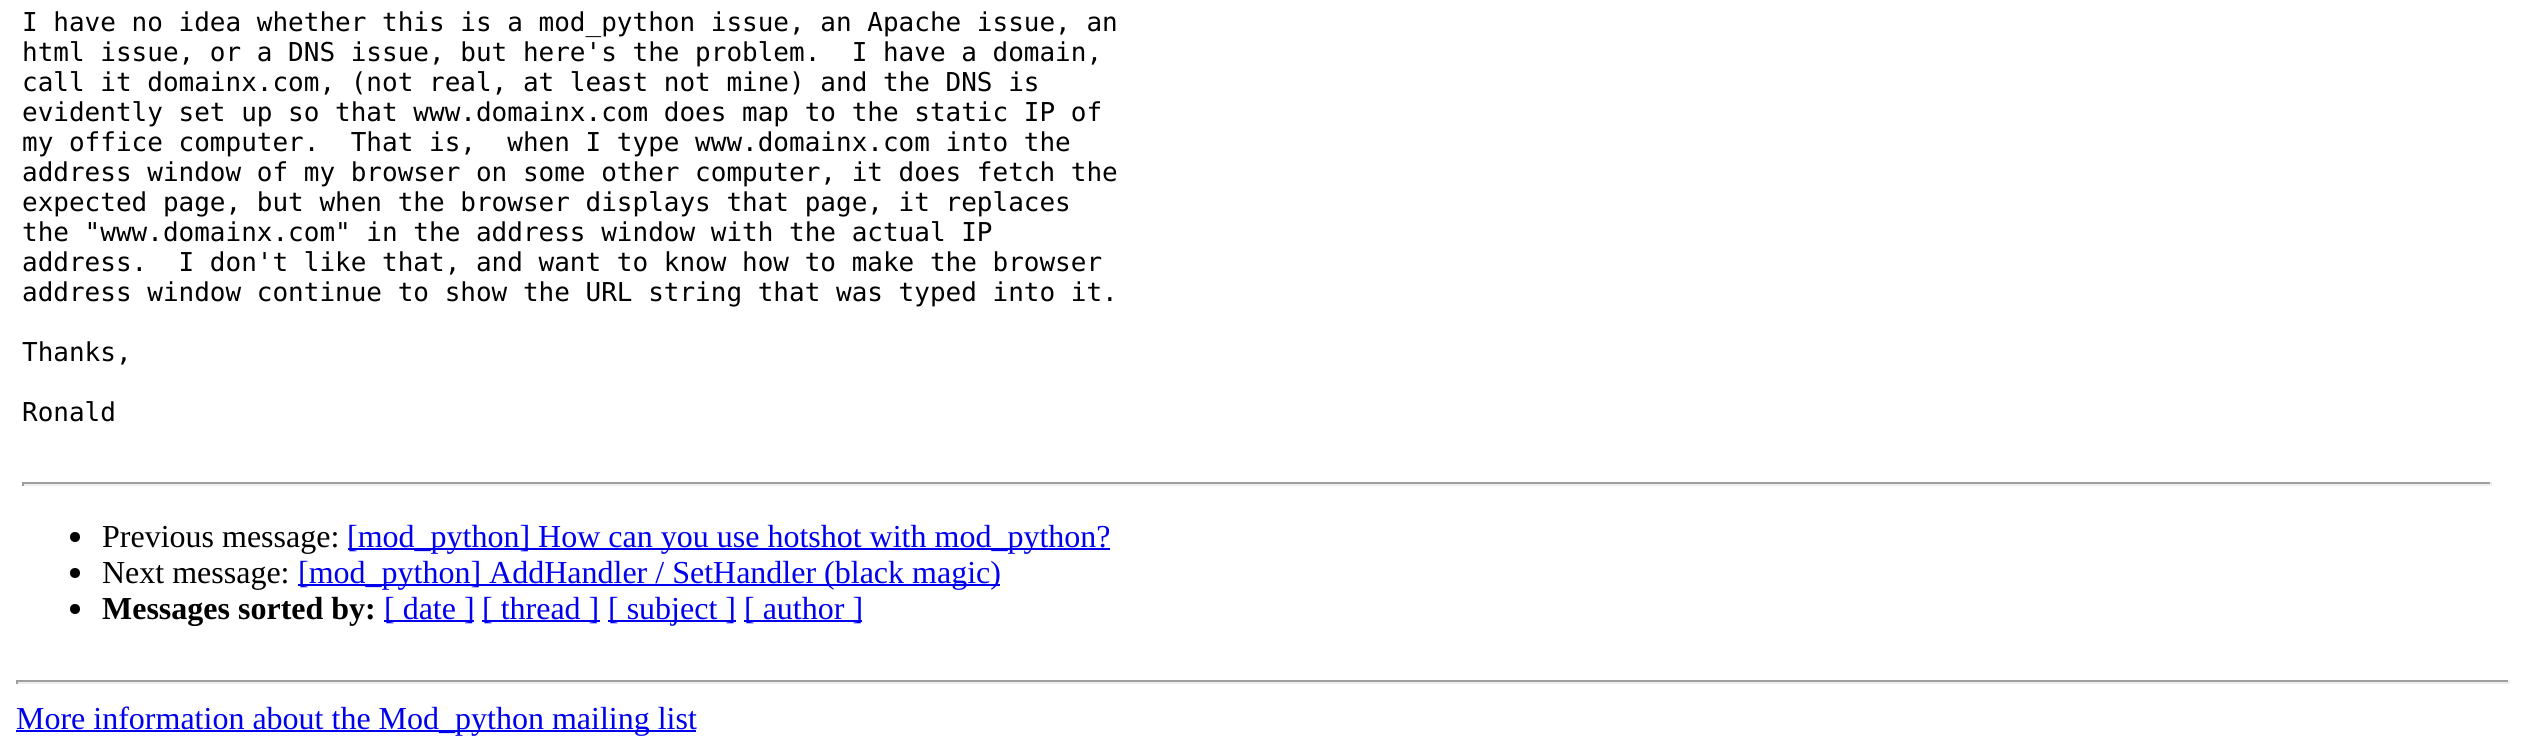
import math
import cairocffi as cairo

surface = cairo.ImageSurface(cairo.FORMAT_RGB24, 2525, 752)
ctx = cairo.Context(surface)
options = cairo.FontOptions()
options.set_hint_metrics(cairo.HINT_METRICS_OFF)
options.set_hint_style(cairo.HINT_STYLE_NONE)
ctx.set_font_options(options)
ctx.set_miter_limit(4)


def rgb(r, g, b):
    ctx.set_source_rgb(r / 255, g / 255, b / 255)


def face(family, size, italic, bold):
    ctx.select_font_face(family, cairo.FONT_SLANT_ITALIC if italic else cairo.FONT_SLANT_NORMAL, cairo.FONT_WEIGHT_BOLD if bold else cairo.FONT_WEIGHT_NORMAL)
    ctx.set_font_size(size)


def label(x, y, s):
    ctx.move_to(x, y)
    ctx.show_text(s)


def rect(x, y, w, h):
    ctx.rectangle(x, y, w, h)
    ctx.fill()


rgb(255, 255, 255)
ctx.paint()
face('DejaVu Sans Mono', 26, 0, 0)
rgb(0, 0, 0)
label(22, 31, 'I have no idea whether this is a mod_python issue, an Apache issue, an')
label(22, 61, 'html issue, or a DNS issue, but here\'s the problem.  I have a domain,')
label(22, 91, 'call it domainx.com, (not real, at least not mine) and the DNS is')
label(22, 121, 'evidently set up so that www.domainx.com does map to the static IP of')
label(22, 151, 'my office computer.  That is,  when I type www.domainx.com into the')
label(22, 181, 'address window of my browser on some other computer, it does fetch the')
label(22, 211, 'expected page, but when the browser displays that page, it replaces')
label(22, 241, 'the "www.domainx.com" in the address window with the actual IP')
label(22, 271, 'address.  I don\'t like that, and want to know how to make the browser')
label(22, 301, 'address window continue to show the URL string that was typed into it.')
label(22, 361, 'Thanks,')
label(22, 421, 'Ronald')
rgb(159, 159, 159)
rect(22, 482, 2470, 2)
rgb(238, 238, 238)
rect(2490, 482, 2, 4)
rect(22, 484, 2470, 2)
rgb(159, 159, 159)
rect(22, 482, 2, 4)
rgb(0, 0, 0)
ctx.new_path()
ctx.arc(75, 537, 5, 0, 2 * math.pi)
ctx.fill()
face('Liberation Serif', 32, 0, 0)
label(102, 547, 'Previous message:')
rgb(0, 0, 238)
rect(348, 548, 762, 2)
label(347, 547, '[mod_python] How can you use hotshot with mod_python?')
rgb(0, 0, 0)
ctx.new_path()
ctx.arc(75, 573, 5, 0, 2 * math.pi)
ctx.fill()
label(102, 583, 'Next message:')
rgb(0, 0, 238)
rect(298, 584, 702, 2)
label(298, 583, '[mod_python] AddHandler / SetHandler (black magic)')
rgb(0, 0, 0)
ctx.new_path()
ctx.arc(75, 609, 5, 0, 2 * math.pi)
ctx.fill()
face('Liberation Serif', 32, 0, 1)
label(102, 619, 'Messages sorted by:')
rgb(0, 0, 238)
rect(384, 620, 90, 2)
face('Liberation Serif', 32, 0, 0)
label(384, 619, '[ date ]')
rect(482, 620, 118, 2)
label(482, 619, '[ thread ]')
rect(608, 620, 128, 2)
label(608, 619, '[ subject ]')
rect(744, 620, 118, 2)
label(744, 619, '[ author ]')
rgb(159, 159, 159)
rect(16, 680, 2494, 2)
rgb(238, 238, 238)
rect(2508, 680, 2, 4)
rect(16, 682, 2494, 2)
rgb(159, 159, 159)
rect(16, 680, 2, 4)
rgb(0, 0, 238)
rect(16, 730, 680, 2)
label(16, 729, 'More information about the Mod_python mailing list')
surface.write_to_png('render.png')
